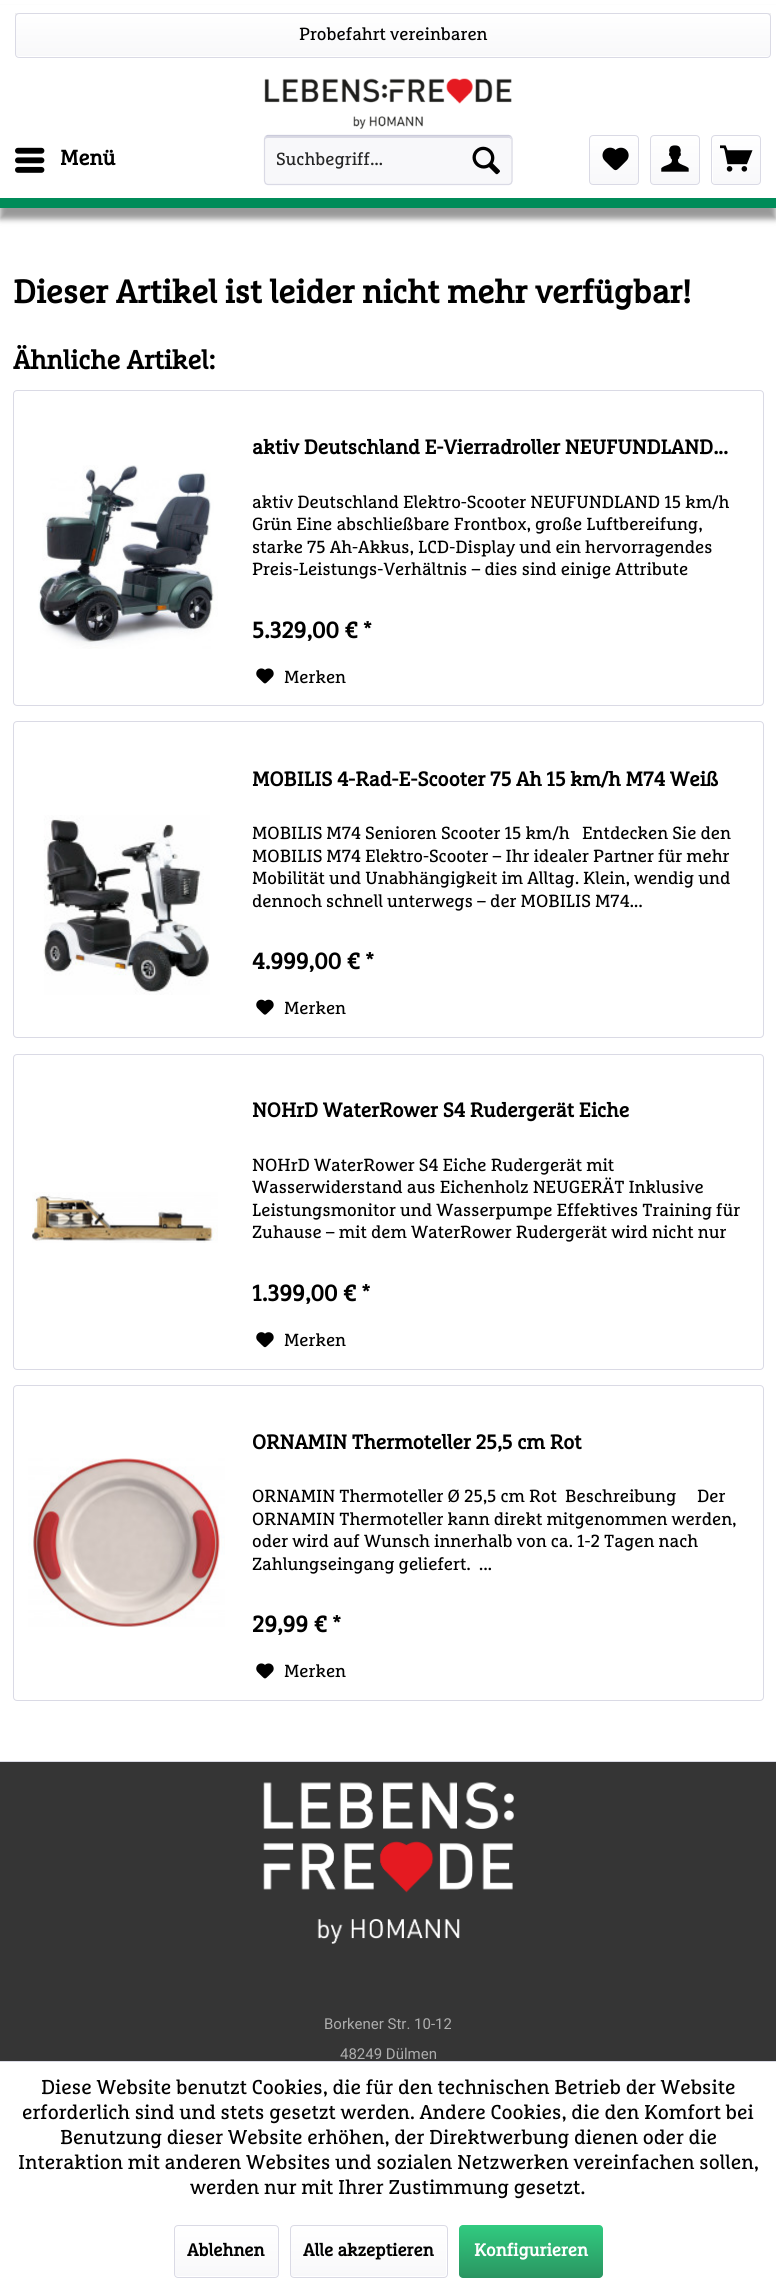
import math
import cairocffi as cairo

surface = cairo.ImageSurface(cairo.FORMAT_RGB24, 776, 2290)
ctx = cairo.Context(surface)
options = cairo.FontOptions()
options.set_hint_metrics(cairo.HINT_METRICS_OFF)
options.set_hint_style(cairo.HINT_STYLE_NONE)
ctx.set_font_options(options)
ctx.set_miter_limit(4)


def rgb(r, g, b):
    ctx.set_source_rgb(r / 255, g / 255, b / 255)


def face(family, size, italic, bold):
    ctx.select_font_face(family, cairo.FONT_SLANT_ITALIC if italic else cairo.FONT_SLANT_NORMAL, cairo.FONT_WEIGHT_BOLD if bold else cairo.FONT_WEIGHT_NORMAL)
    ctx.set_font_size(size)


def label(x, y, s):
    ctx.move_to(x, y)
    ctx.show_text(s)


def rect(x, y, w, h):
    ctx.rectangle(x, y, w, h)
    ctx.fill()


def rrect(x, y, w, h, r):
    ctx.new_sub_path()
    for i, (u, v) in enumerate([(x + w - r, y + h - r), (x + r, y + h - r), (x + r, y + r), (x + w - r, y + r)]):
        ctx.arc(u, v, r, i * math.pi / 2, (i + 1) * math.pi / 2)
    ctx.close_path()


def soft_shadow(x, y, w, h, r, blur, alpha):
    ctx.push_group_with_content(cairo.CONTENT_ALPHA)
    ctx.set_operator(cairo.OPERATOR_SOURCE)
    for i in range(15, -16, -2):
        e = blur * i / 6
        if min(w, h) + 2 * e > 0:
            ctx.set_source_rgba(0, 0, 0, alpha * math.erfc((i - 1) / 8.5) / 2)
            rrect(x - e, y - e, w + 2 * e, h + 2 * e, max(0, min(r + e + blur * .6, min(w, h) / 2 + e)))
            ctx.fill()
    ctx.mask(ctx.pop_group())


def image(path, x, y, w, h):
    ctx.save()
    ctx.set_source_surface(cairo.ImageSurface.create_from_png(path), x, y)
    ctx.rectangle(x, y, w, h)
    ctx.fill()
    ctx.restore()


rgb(255, 255, 255)
ctx.paint()
rgb(49, 49, 49)
soft_shadow(0, 11, 776, 208, 0, 3, 0.5)
rgb(255, 255, 255)
rect(0, 5, 776, 193)
rgb(0, 140, 89)
rect(0, 198, 776, 10)
rgb(242, 242, 242)
rect(15, 13, 756, 41)
gradient = cairo.LinearGradient(393, 14, 393, 56)
gradient.add_color_stop_rgba(0, 1, 1, 1, 1)
gradient.add_color_stop_rgba(1, 0.973, 0.973, 0.98, 1)
ctx.set_source(gradient)
rrect(16, 14, 754, 42, 2.5)
ctx.fill()
rrect(15.5, 13.5, 755, 44, 3.5)
rgb(218, 218, 229)
ctx.set_line_width(1)
ctx.stroke()
face('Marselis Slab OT', 17.5, 0, 0)
rgb(0, 0, 0)
label(299, 40, 'Probefahrt vereinbaren')
image('image0.png', 264, 78, 248, 51)
image('image1.png', 15, 147, 30, 26)
face('Marselis Slab OT', 21, 0, 1)
label(60, 165, 'Menü')
rgb(248, 248, 250)
rrect(264, 135, 249, 50, 4)
ctx.fill()
rgb(218, 218, 229)
ctx.new_path()
ctx.move_to(268, 138)
ctx.line_to(509, 138)
ctx.curve_to(510, 138, 511, 139, 511, 140)
ctx.curve_to(511, 138, 511, 136, 508, 136)
ctx.line_to(267, 136)
ctx.curve_to(265, 137, 265, 139, 265, 140)
ctx.curve_to(265, 139, 266, 138, 268, 138)
ctx.close_path()
ctx.fill()
ctx.new_path()
ctx.move_to(265.5, 136.5)
ctx.line_to(267.5, 135.5)
ctx.line_to(509, 135.5)
ctx.line_to(511, 136.5)
rgb(203, 203, 219)
ctx.set_line_width(1.2)
ctx.stroke()
ctx.new_path()
ctx.move_to(511, 136.5)
ctx.line_to(512, 139)
ctx.line_to(512, 181)
ctx.line_to(511, 183.5)
ctx.line_to(509, 184.5)
ctx.line_to(267.5, 184.5)
ctx.line_to(265.5, 183.5)
ctx.line_to(264.5, 181)
ctx.line_to(264.5, 139)
ctx.line_to(265.5, 136.5)
rgb(218, 218, 229)
ctx.stroke()
face('Marselis Slab OT', 17.5, 0, 0)
rgb(38, 38, 38)
label(276, 165, 'Suchbegriff...')
image('image2.png', 472, 146, 28, 29)
gradient = cairo.LinearGradient(614, 136, 614, 184)
gradient.add_color_stop_rgba(0, 1, 1, 1, 1)
gradient.add_color_stop_rgba(1, 0.973, 0.973, 0.98, 1)
ctx.set_source(gradient)
rrect(590, 136, 48, 48, 2.5)
ctx.fill()
rrect(589.5, 135.5, 49, 49, 3.5)
rgb(218, 218, 229)
ctx.set_line_width(1)
ctx.stroke()
image('image3.png', 602, 147, 27, 24)
gradient = cairo.LinearGradient(675, 136, 675, 184)
gradient.add_color_stop_rgba(0, 1, 1, 1, 1)
gradient.add_color_stop_rgba(1, 0.973, 0.973, 0.98, 1)
ctx.set_source(gradient)
rrect(651, 136, 48, 48, 2.5)
ctx.fill()
rrect(650.5, 135.5, 49, 49, 3.5)
rgb(218, 218, 229)
ctx.stroke()
image('image4.png', 661, 145, 28, 27)
gradient = cairo.LinearGradient(736, 136, 736, 184)
gradient.add_color_stop_rgba(0, 1, 1, 1, 1)
gradient.add_color_stop_rgba(1, 0.973, 0.973, 0.98, 1)
ctx.set_source(gradient)
rrect(713, 136, 47, 48, 2.5)
ctx.fill()
rrect(711.5, 135.5, 49, 49, 3.5)
rgb(218, 218, 229)
ctx.stroke()
image('image5.png', 720, 145, 33, 27)
face('Marselis Slab OT', 32.5, 0, 1)
rgb(0, 0, 0)
label(13, 303, 'Dieser Artikel ist leider nicht mehr verfügbar!')
face('Marselis Slab OT', 26.25, 0, 1)
label(13, 369, 'Ähnliche Artikel:')
rrect(13.5, 390.5, 750, 315, 3.5)
rgb(218, 218, 229)
ctx.stroke()
face('Marselis Slab OT', 20, 0, 1)
rgb(0, 0, 0)
label(252, 454, 'aktiv Deutschland E-Vierradroller NEUFUNDLAND...')
image('image6.png', 38, 465, 180, 184)
face('Marselis Slab OT', 17.5, 0, 0)
label(252, 508, 'aktiv Deutschland Elektro-Scooter NEUFUNDLAND 15 km/h')
label(252, 530, 'Grün Eine abschließbare Frontbox, große Luftbereifung,')
label(252, 553, 'starke 75 Ah-Akkus, LCD-Display und ein hervorragendes')
label(252, 575, 'Preis-Leistungs-Verhältnis – dies sind einige Attribute')
face('Marselis Slab OT', 22.5, 0, 1)
label(252, 638, '5.329,00 € *')
image('image7.png', 256, 668, 18, 16)
face('Marselis Slab OT', 17.5, 0, 0)
label(284, 683, 'Merken')
rrect(13.5, 721.5, 750, 316, 3.5)
rgb(218, 218, 229)
ctx.stroke()
face('Marselis Slab OT', 20, 0, 1)
rgb(0, 0, 0)
label(252, 786, 'MOBILIS 4-Rad-E-Scooter 75 Ah 15 km/h M74 Weiß')
image('image8.png', 43, 815, 167, 180)
face('Marselis Slab OT', 17.5, 0, 0)
label(252, 839, 'MOBILIS M74 Senioren Scooter 15 km/h')
label(582, 839, 'Entdecken Sie den')
label(252, 862, 'MOBILIS M74 Elektro-Scooter – Ihr idealer Partner für mehr')
label(252, 884, 'Mobilität und Unabhängigkeit im Alltag. Klein, wendig und')
label(252, 907, 'dennoch schnell unterwegs – der MOBILIS M74...')
face('Marselis Slab OT', 22.5, 0, 1)
label(252, 969, '4.999,00 € *')
image('image9.png', 256, 999, 18, 16)
face('Marselis Slab OT', 17.5, 0, 0)
label(284, 1014, 'Merken')
rrect(13.5, 1054.5, 750, 315, 3.5)
rgb(218, 218, 229)
ctx.stroke()
face('Marselis Slab OT', 20, 0, 1)
rgb(0, 0, 0)
label(252, 1117, 'NOHrD WaterRower S4 Rudergerät Eiche')
image('image10.png', 32, 1192, 186, 51)
face('Marselis Slab OT', 17.5, 0, 0)
label(252, 1171, 'NOHrD WaterRower S4 Eiche Rudergerät mit')
label(252, 1193, 'Wasserwiderstand aus Eichenholz NEUGERÄT Inklusive')
label(252, 1216, 'Leistungsmonitor und Wasserpumpe Effektives Training für')
label(252, 1238, 'Zuhause – mit dem WaterRower Rudergerät wird nicht nur')
face('Marselis Slab OT', 22.5, 0, 1)
label(252, 1301, '1.399,00 € *')
image('image11.png', 256, 1332, 18, 16)
face('Marselis Slab OT', 17.5, 0, 0)
label(284, 1346, 'Merken')
rrect(13.5, 1385.5, 750, 315, 3.5)
rgb(218, 218, 229)
ctx.stroke()
face('Marselis Slab OT', 20, 0, 1)
rgb(0, 0, 0)
label(252, 1449, 'ORNAMIN Thermoteller 25,5 cm Rot')
image('image12.png', 28, 1458, 197, 169)
face('Marselis Slab OT', 17.5, 0, 0)
label(252, 1502, 'ORNAMIN Thermoteller Ø 25,5 cm Rot  Beschreibung     Der')
label(252, 1525, 'ORNAMIN Thermoteller kann direkt mitgenommen werden,')
label(252, 1547, 'oder wird auf Wunsch innerhalb von ca. 1-2 Tagen nach')
label(252, 1570, 'Zahlungseingang geliefert.  ...')
face('Marselis Slab OT', 22.5, 0, 1)
label(252, 1632, '29,99 € *')
image('image7.png', 256, 1663, 18, 16)
face('Marselis Slab OT', 17.5, 0, 0)
label(284, 1677, 'Merken')
rgb(53, 53, 53)
rect(0, 1762, 776, 299)
rgb(218, 218, 229)
rect(0, 1761, 776, 1)
image('image13.png', 263, 1782, 251, 162)
face('Roboto', 15, 0, 0)
rgb(174, 174, 174)
label(324, 2029, 'Borkener Str. 10-12')
label(340, 2059, '48249 Dülmen')
rgb(218, 218, 229)
rect(0, 2061, 776, 1)
face('Marselis Slab OT', 20, 0, 0)
rgb(0, 0, 0)
label(41, 2094, 'Diese Website benutzt Cookies, die für den technischen Betrieb der Website')
label(22, 2119, 'erforderlich sind und stets gesetzt werden. Andere Cookies, die den Komfort bei')
label(60, 2144, 'Benutzung dieser Website erhöhen, der Direktwerbung dienen oder die')
label(18, 2169, 'Interaktion mit anderen Websites und sozialen Netzwerken vereinfachen sollen,')
label(190, 2194, 'werden nur mit Ihrer Zustimmung gesetzt.')
gradient = cairo.LinearGradient(226, 2226, 226, 2276)
gradient.add_color_stop_rgba(0, 1, 1, 1, 1)
gradient.add_color_stop_rgba(1, 0.973, 0.973, 0.98, 1)
ctx.set_source(gradient)
rrect(175, 2226, 103, 50, 2.5)
ctx.fill()
rrect(174.5, 2225.5, 104, 52, 3.5)
rgb(218, 218, 229)
ctx.stroke()
face('Marselis Slab OT', 17.5, 0, 1)
rgb(0, 0, 0)
label(187, 2256, 'Ablehnen')
gradient = cairo.LinearGradient(369, 2226, 369, 2276)
gradient.add_color_stop_rgba(0, 1, 1, 1, 1)
gradient.add_color_stop_rgba(1, 0.973, 0.973, 0.98, 1)
ctx.set_source(gradient)
rrect(291, 2226, 155, 50, 2.5)
ctx.fill()
rrect(290.5, 2225.5, 157, 52, 3.5)
rgb(218, 218, 229)
ctx.stroke()
rgb(0, 0, 0)
label(303, 2256, 'Alle akzeptieren')
gradient = cairo.LinearGradient(531, 2225, 531, 2278)
gradient.add_color_stop_rgba(0, 0.192, 0.796, 0.502, 1)
gradient.add_color_stop_rgba(1, 0.165, 0.584, 0.38, 1)
ctx.set_source(gradient)
rrect(459, 2225, 144, 53, 4)
ctx.fill()
rgb(255, 255, 255)
label(474, 2256, 'Konfigurieren')
surface.write_to_png('render.png')
